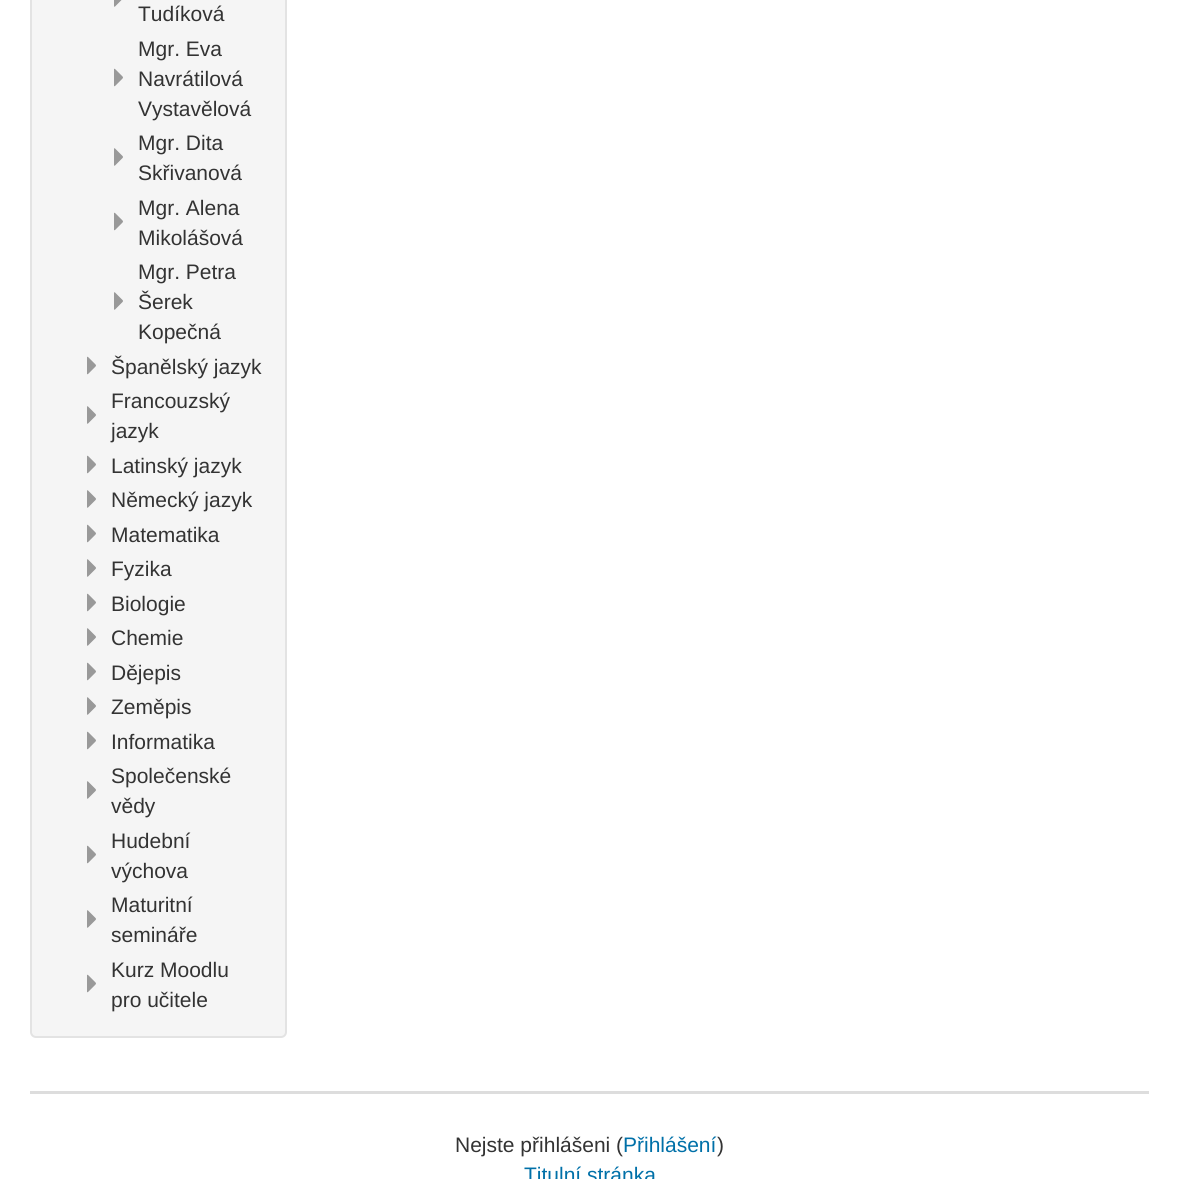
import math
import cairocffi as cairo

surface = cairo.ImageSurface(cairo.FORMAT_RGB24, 1179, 1179)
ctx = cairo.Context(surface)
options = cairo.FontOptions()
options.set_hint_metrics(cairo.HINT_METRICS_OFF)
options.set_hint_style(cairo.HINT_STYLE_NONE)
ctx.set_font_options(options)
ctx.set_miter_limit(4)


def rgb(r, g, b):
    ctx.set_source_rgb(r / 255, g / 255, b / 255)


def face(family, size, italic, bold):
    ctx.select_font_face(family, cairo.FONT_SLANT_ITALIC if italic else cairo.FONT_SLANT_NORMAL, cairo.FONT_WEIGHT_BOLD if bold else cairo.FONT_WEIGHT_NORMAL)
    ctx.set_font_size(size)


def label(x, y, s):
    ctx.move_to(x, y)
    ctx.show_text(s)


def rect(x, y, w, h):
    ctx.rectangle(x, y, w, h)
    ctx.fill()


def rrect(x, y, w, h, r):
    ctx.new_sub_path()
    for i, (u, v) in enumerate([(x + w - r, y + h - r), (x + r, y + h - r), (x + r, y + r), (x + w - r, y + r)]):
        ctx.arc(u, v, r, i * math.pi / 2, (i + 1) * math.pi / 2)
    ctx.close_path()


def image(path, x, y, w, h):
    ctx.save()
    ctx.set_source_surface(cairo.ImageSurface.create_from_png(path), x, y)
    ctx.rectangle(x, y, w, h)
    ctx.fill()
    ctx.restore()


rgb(255, 255, 255)
ctx.paint()
rgb(245, 245, 245)
rrect(31, -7, 255, 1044, 5)
ctx.fill_preserve()
rgb(227, 227, 227)
ctx.stroke()
image('image0.png', 114, 0, 8, 7)
face('Liberation Sans', 21, 0, 0)
rgb(51, 51, 51)
label(138, 21, 'Tudíková')
image('image1.png', 114, 68, 9, 19)
label(138, 56, 'Mgr. Eva')
label(138, 86, 'Navrátilová')
label(138, 116, 'Vystavělová')
image('image2.png', 114, 148, 9, 18)
label(138, 150, 'Mgr. Dita')
label(138, 180, 'Skřivanová')
image('image1.png', 114, 212, 9, 19)
label(138, 215, 'Mgr. Alena')
label(138, 245, 'Mikolášová')
image('image2.png', 114, 292, 9, 18)
label(138, 279, 'Mgr. Petra')
label(138, 309, 'Šerek')
label(138, 339, 'Kopečná')
image('image1.png', 87, 356, 9, 19)
label(111, 374, 'Španělský jazyk')
image('image2.png', 87, 406, 9, 18)
label(111, 408, 'Francouzský')
label(111, 438, 'jazyk')
image('image1.png', 87, 455, 9, 19)
label(111, 473, 'Latinský jazyk')
image('image2.png', 87, 490, 9, 18)
label(111, 507, 'Německý jazyk')
image('image1.png', 87, 524, 9, 19)
label(111, 542, 'Matematika')
image('image3.png', 87, 559, 9, 18)
label(111, 576, 'Fyzika')
image('image1.png', 87, 593, 9, 19)
label(111, 611, 'Biologie')
image('image2.png', 87, 628, 9, 18)
label(111, 645, 'Chemie')
image('image1.png', 87, 662, 9, 19)
label(111, 680, 'Dějepis')
image('image2.png', 87, 697, 9, 18)
label(111, 714, 'Zeměpis')
image('image1.png', 87, 731, 9, 19)
label(111, 749, 'Informatika')
image('image2.png', 87, 781, 9, 18)
label(111, 783, 'Společenské')
label(111, 813, 'vědy')
image('image1.png', 87, 845, 9, 19)
label(111, 848, 'Hudební')
label(111, 878, 'výchova')
image('image2.png', 87, 910, 9, 18)
label(111, 912, 'Maturitní')
label(111, 942, 'semináře')
image('image1.png', 87, 974, 9, 19)
label(111, 977, 'Kurz Moodlu')
label(111, 1007, 'pro učitele')
rgb(221, 221, 221)
rect(30, 1091, 1119, 3)
rgb(51, 51, 51)
label(455, 1152, 'Nejste přihlášeni (')
rgb(0, 112, 168)
label(623, 1152, 'Přihlášení')
rgb(51, 51, 51)
label(717, 1152, ')')
rgb(0, 112, 168)
label(524, 1182, 'Titulní stránka')
surface.write_to_png('render.png')
